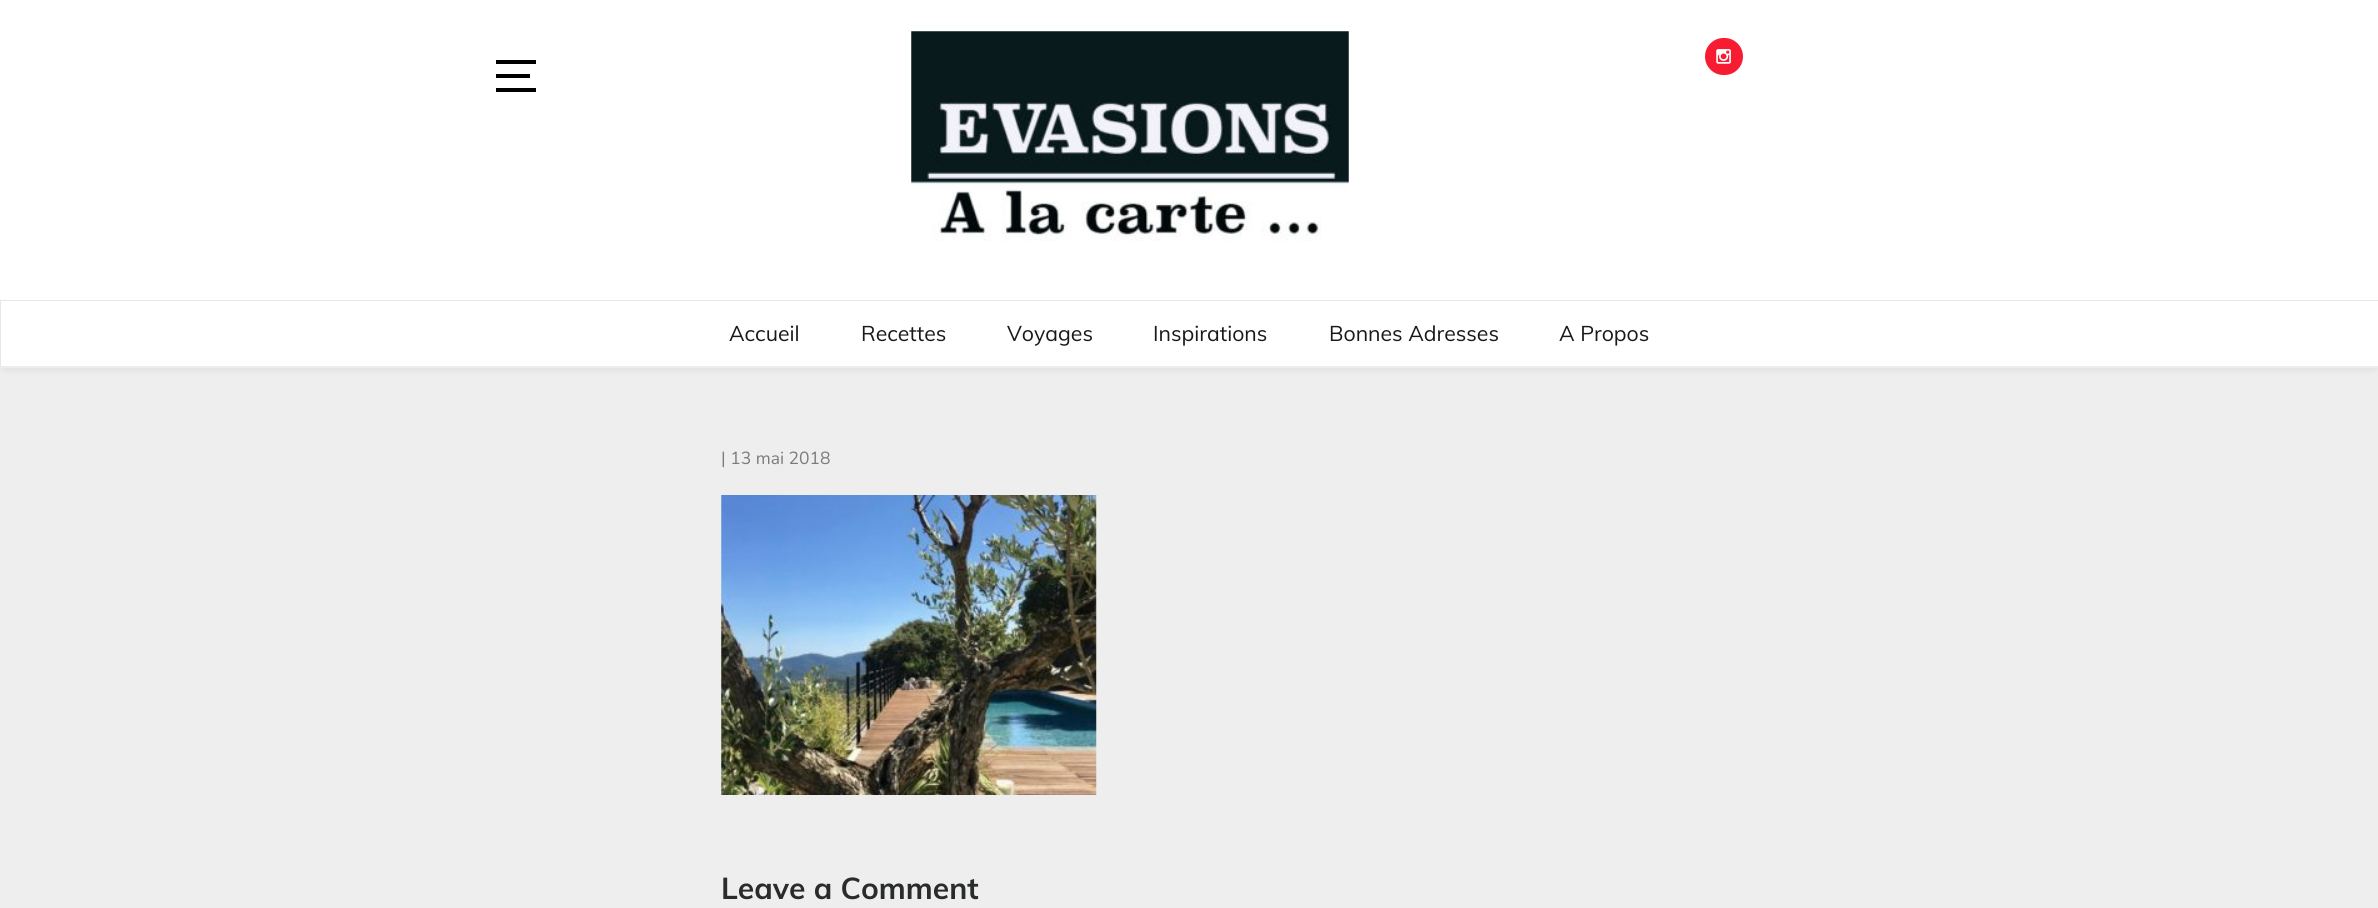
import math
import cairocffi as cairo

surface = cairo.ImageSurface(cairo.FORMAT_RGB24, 2378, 908)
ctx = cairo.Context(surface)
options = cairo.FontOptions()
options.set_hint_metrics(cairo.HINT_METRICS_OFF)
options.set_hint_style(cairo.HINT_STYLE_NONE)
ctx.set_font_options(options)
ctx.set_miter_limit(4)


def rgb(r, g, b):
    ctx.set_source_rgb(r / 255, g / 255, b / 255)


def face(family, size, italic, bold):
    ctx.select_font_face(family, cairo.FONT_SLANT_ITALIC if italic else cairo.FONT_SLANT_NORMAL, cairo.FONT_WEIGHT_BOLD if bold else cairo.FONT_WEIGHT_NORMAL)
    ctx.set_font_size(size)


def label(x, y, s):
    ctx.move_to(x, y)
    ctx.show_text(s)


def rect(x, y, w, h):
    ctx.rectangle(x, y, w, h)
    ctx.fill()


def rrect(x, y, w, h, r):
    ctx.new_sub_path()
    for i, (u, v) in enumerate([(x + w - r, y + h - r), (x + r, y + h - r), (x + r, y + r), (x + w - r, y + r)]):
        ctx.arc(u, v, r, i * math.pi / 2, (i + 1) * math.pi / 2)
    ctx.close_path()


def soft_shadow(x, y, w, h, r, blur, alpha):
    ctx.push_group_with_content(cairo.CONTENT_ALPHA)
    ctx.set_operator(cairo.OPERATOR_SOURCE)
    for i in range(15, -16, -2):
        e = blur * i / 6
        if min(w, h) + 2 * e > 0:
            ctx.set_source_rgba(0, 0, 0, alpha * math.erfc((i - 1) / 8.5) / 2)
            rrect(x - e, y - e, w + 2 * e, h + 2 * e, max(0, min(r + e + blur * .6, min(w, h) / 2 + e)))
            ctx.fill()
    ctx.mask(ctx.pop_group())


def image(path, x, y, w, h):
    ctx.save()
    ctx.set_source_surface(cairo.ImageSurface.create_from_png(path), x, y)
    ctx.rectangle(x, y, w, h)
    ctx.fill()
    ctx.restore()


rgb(238, 238, 238)
ctx.paint()
rgb(255, 255, 255)
rect(0, 0, 2378, 300)
rgb(0, 0, 0)
rect(496, 74, 34, 4)
rect(496, 60, 40, 4)
rect(496, 88, 40, 4)
image('image0.png', 911, 31, 438, 210)
rgb(247, 28, 49)
rrect(1705, 38, 38, 37, 18.5)
ctx.fill()
image('image1.png', 1716, 49, 15, 15)
rgb(0, 0, 0)
soft_shadow(5, 309, 2369, 57, 0, 5, 0.15)
rgb(255, 255, 255)
rect(0, 301, 2378, 67)
rgb(231, 231, 231)
rect(0, 300, 2378, 1)
rgb(237, 237, 237)
ctx.new_path()
ctx.move_to(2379, 368)
ctx.line_to(0, 368)
ctx.line_to(1, 366)
ctx.line_to(2378, 366)
ctx.close_path()
ctx.fill()
rgb(231, 231, 231)
ctx.new_path()
ctx.move_to(0, 368)
ctx.line_to(0, 300)
ctx.line_to(1, 301)
ctx.line_to(1, 366)
ctx.close_path()
ctx.fill()
face('Muli', 21.25, 0, 0)
rgb(25, 25, 25)
label(729, 341, 'Accueil')
label(861, 341, 'Recettes')
label(1007, 341, 'Voyages')
label(1153, 341, 'Inspirations')
label(1329, 341, 'Bonnes Adresses')
label(1559, 341, 'A Propos')
face('Nunito', 17.5, 0, 0)
rgb(124, 124, 124)
label(721, 464, '| 13 mai 2018')
image('image2.png', 721, 495, 376, 300)
face('Muli', 30, 0, 1)
rgb(42, 43, 43)
label(721, 899, 'Leave a Comment')
surface.write_to_png('render.png')
